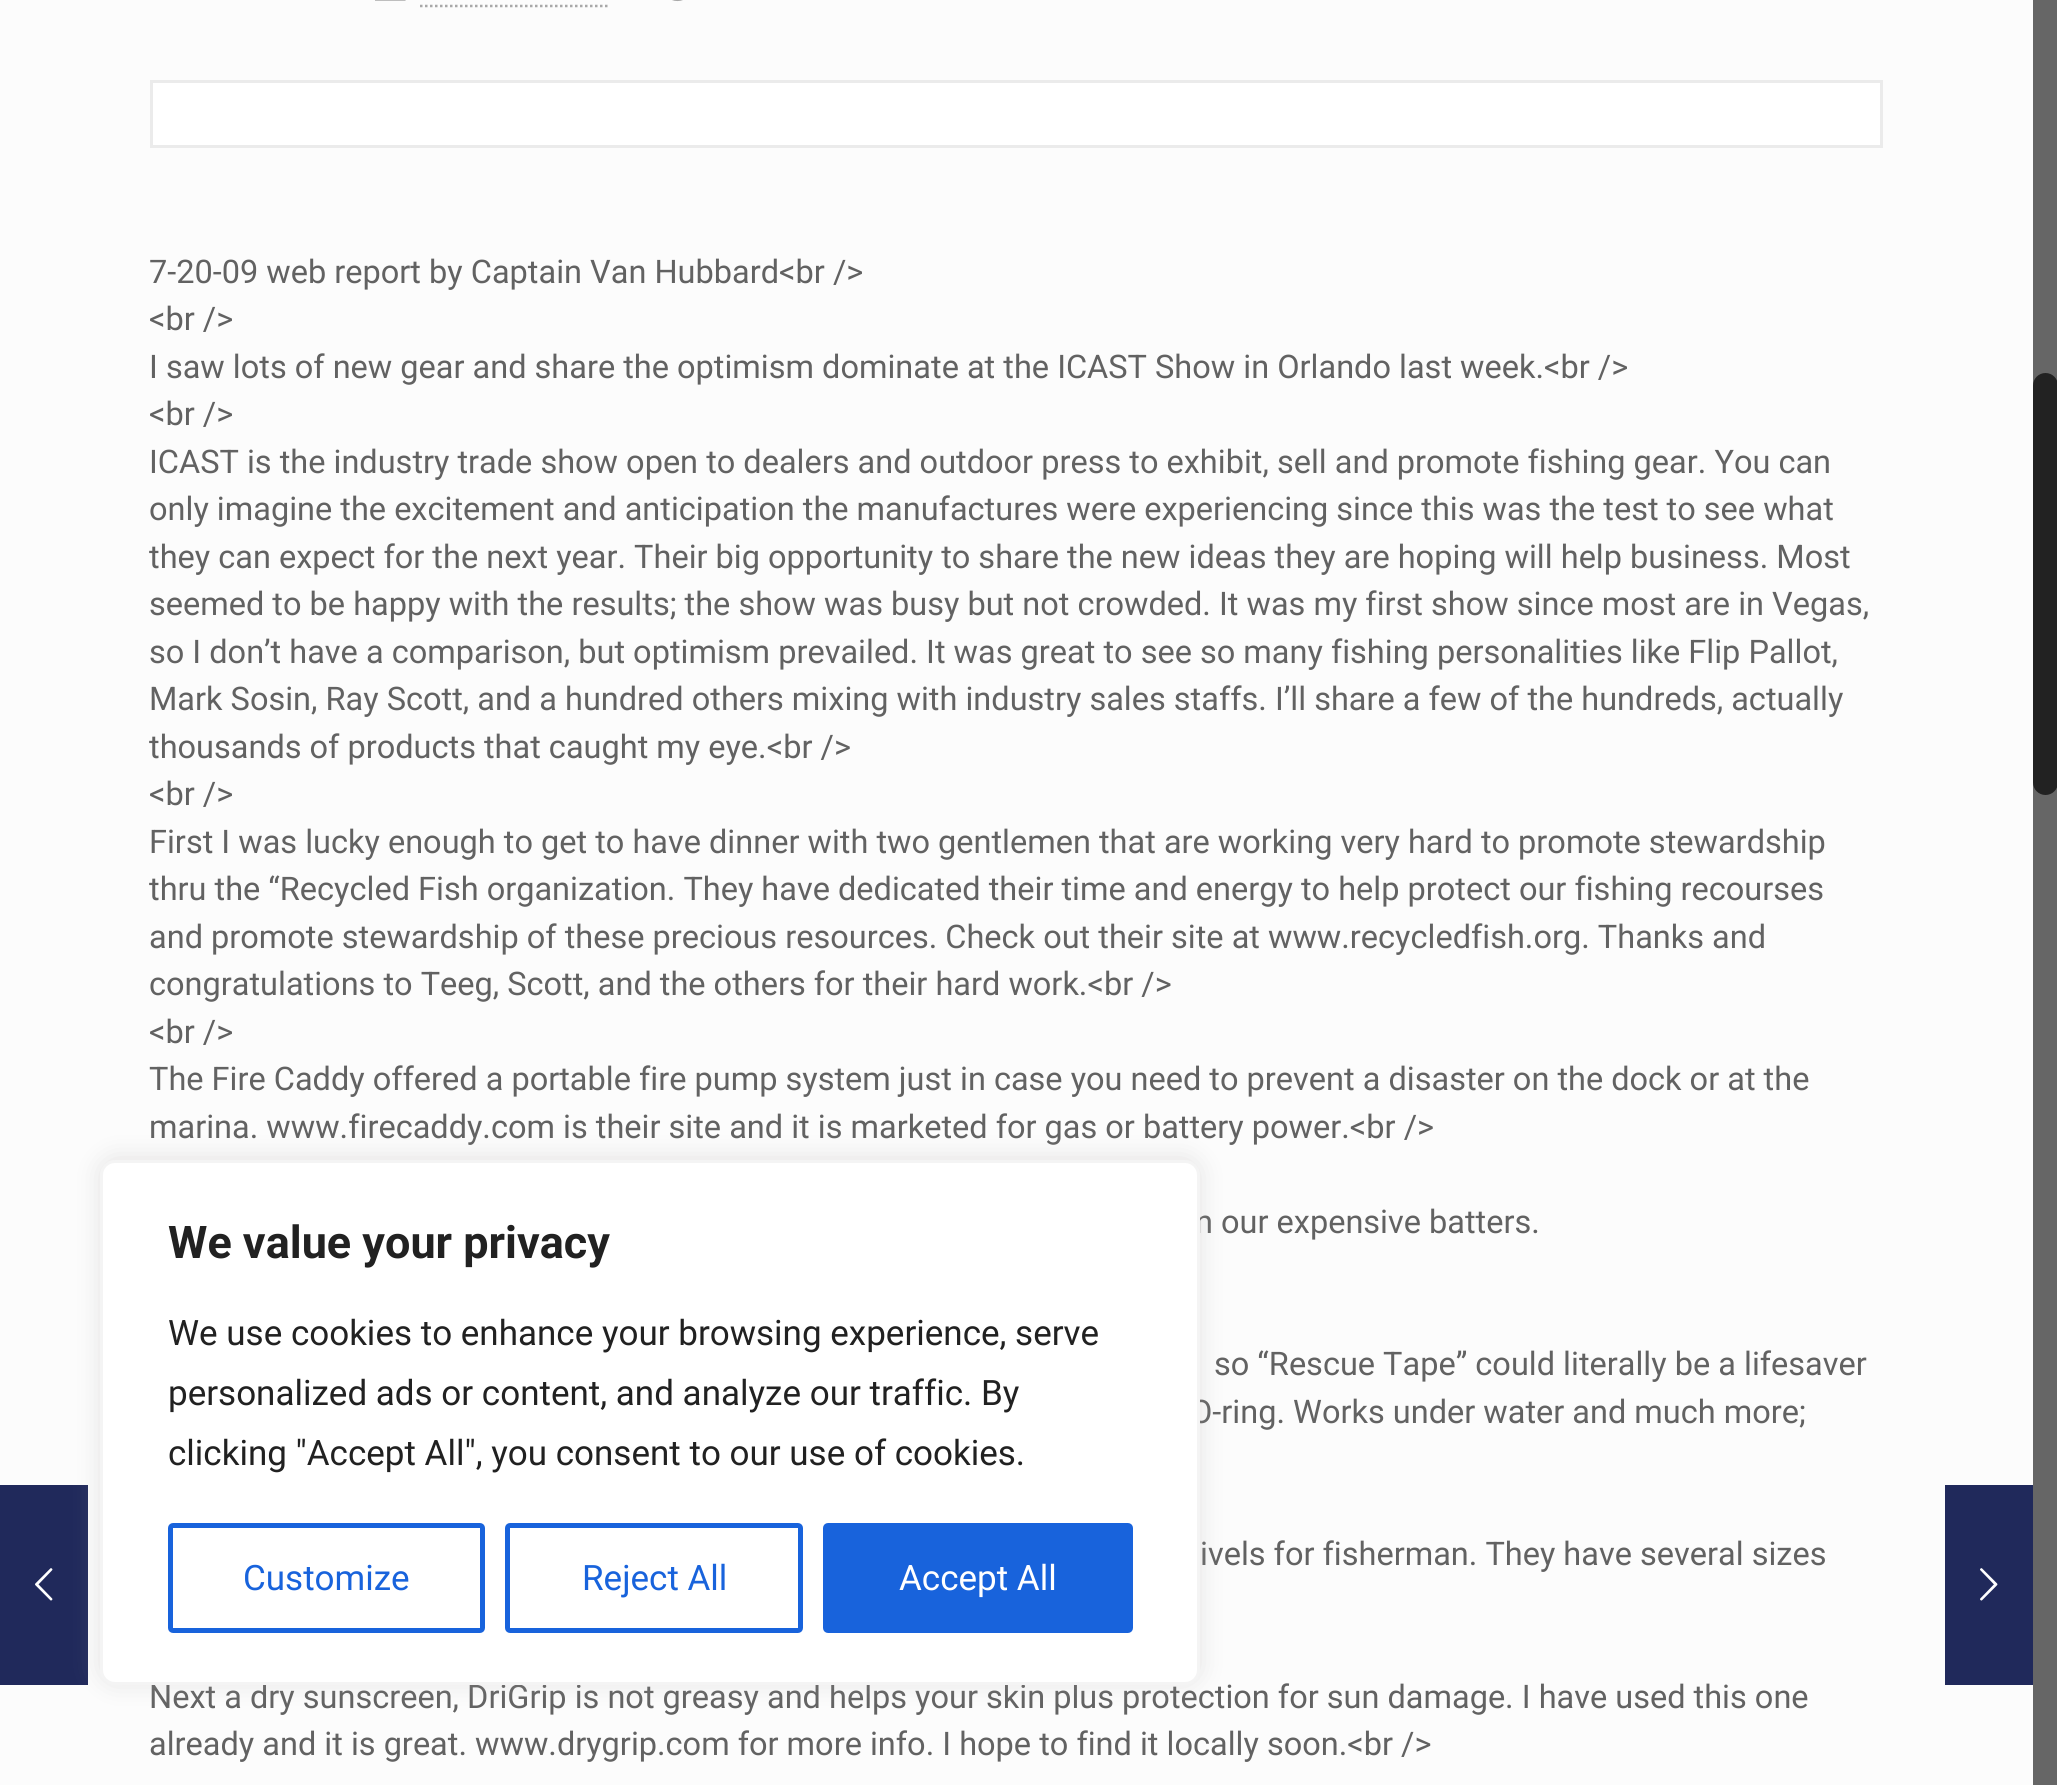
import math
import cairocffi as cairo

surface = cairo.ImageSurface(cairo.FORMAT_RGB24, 2057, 1785)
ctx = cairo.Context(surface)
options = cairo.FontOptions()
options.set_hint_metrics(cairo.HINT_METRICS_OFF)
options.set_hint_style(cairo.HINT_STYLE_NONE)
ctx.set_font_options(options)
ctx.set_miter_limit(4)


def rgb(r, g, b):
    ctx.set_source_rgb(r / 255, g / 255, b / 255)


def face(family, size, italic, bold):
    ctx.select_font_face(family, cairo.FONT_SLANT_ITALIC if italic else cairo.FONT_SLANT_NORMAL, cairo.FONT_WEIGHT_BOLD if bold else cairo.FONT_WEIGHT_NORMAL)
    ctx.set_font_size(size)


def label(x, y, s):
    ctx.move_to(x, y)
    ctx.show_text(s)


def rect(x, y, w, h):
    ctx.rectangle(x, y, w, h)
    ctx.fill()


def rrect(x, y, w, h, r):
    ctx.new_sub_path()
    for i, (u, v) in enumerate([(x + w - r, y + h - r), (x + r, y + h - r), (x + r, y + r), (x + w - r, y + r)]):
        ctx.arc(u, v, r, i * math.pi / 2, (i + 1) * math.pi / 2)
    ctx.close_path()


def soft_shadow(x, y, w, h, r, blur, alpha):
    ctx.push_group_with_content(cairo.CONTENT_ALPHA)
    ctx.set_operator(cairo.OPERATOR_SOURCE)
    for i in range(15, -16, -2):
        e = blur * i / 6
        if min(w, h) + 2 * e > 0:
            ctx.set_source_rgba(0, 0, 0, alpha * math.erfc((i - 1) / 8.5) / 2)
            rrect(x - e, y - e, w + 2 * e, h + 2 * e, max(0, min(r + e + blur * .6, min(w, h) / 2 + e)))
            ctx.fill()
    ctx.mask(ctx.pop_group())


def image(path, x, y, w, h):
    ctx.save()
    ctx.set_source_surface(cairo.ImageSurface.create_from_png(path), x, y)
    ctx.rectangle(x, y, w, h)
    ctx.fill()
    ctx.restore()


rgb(252, 252, 252)
ctx.paint()
image('image0.png', 375, 0, 31, 1)
ctx.new_path()
ctx.move_to(420, 6)
ctx.line_to(610, 6)
rgb(168, 168, 168)
ctx.set_line_width(2.5)
ctx.set_dash([2.5, 2.5])
ctx.stroke()
image('image1.png', 672, 0, 11, 2)
rgb(255, 255, 255)
ctx.rectangle(151.5, 81.5, 1730, 65)
ctx.fill_preserve()
rgb(235, 235, 235)
ctx.set_line_width(3)
ctx.set_dash([])
ctx.stroke()
face('Roboto', 32.5, 0, 0)
rgb(98, 98, 98)
label(149, 283, '7-20-09 web report by Captain Van Hubbard<br />')
label(149, 330, '<br />')
label(149, 378, 'I saw lots of new gear and share the optimism dominate at the ICAST Show in Orlando last week.<br />')
label(149, 425, '<br />')
label(149, 473, 'ICAST is the industry trade show open to dealers and outdoor press to exhibit, sell and promote fishing gear. You can')
label(149, 520, 'only imagine the excitement and anticipation the manufactures were experiencing since this was the test to see what')
label(149, 568, 'they can expect for the next year. Their big opportunity to share the new ideas they are hoping will help business. Most')
label(149, 615, 'seemed to be happy with the results; the show was busy but not crowded. It was my first show since most are in Vegas,')
label(149, 663, 'so I don’t have a comparison, but optimism prevailed. It was great to see so many fishing personalities like Flip Pallot,')
label(149, 710, 'Mark Sosin, Ray Scott, and a hundred others mixing with industry sales staffs. I’ll share a few of the hundreds, actually')
label(149, 758, 'thousands of products that caught my eye.<br />')
label(149, 805, '<br />')
label(149, 853, 'First I was lucky enough to get to have dinner with two gentlemen that are working very hard to promote stewardship')
label(149, 900, 'thru the “Recycled Fish organization. They have dedicated their time and energy to help protect our fishing recourses')
label(149, 948, 'and promote stewardship of these precious resources. Check out their site at www.recycledfish.org. Thanks and')
label(149, 995, 'congratulations to Teeg, Scott, and the others for their hard work.<br />')
label(149, 1043, '<br />')
label(149, 1090, 'The Fire Caddy offered a portable fire pump system just in case you need to prevent a disaster on the dock or at the')
label(149, 1138, 'marina. www.firecaddy.com is their site and it is marketed for gas or battery power.<br />')
label(1195, 1233, 'n our expensive batters.')
label(1214, 1375, 'so “Rescue Tape” could literally be a lifesaver')
label(1190, 1423, 'O-ring. Works under water and much more;')
label(1200, 1565, 'ivels for fisherman. They have several sizes')
label(149, 1708, 'Next a dry sunscreen, DriGrip is not greasy and helps your skin plus protection for sun damage. I have used this one')
label(149, 1755, 'already and it is great. www.drygrip.com for more info. I hope to find it locally soon.<br />')
rgb(102, 102, 102)
rect(2033, 0, 24, 1785)
rgb(34, 34, 34)
rrect(2033, 373, 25, 422, 12.5)
ctx.fill()
rgb(32, 41, 91)
rect(0, 1485, 88, 200)
image('image2.png', 35, 1568, 18, 33)
rgb(172, 171, 171)
soft_shadow(100, 1158, 1100, 525, 15, 12.5, 0.3)
rgb(255, 255, 255)
rrect(101.5, 1161.5, 1097, 522, 13.5)
ctx.fill_preserve()
rgb(244, 244, 244)
ctx.stroke()
face('Roboto', 45, 0, 1)
rgb(33, 33, 33)
label(168, 1258, 'We value your privacy')
face('Roboto', 35, 0, 0)
label(168, 1345, 'We use cookies to enhance your browsing experience, serve')
label(168, 1405, 'personalized ads or content, and analyze our traffic. By')
label(168, 1465, 'clicking "Accept All", you consent to our use of cookies.')
rrect(170.5, 1525.5, 312, 105, 2.5)
rgb(24, 99, 220)
ctx.set_line_width(5)
ctx.stroke()
label(243, 1590, 'Customize')
rrect(507.5, 1525.5, 293, 105, 2.5)
ctx.stroke()
label(582, 1590, 'Reject All')
rrect(825.5, 1525.5, 305, 105, 2.5)
ctx.fill_preserve()
ctx.stroke()
rgb(255, 255, 255)
label(899, 1590, 'Accept All')
rgb(32, 41, 91)
rect(1945, 1485, 88, 200)
image('image3.png', 1980, 1568, 18, 33)
surface.write_to_png('render.png')
